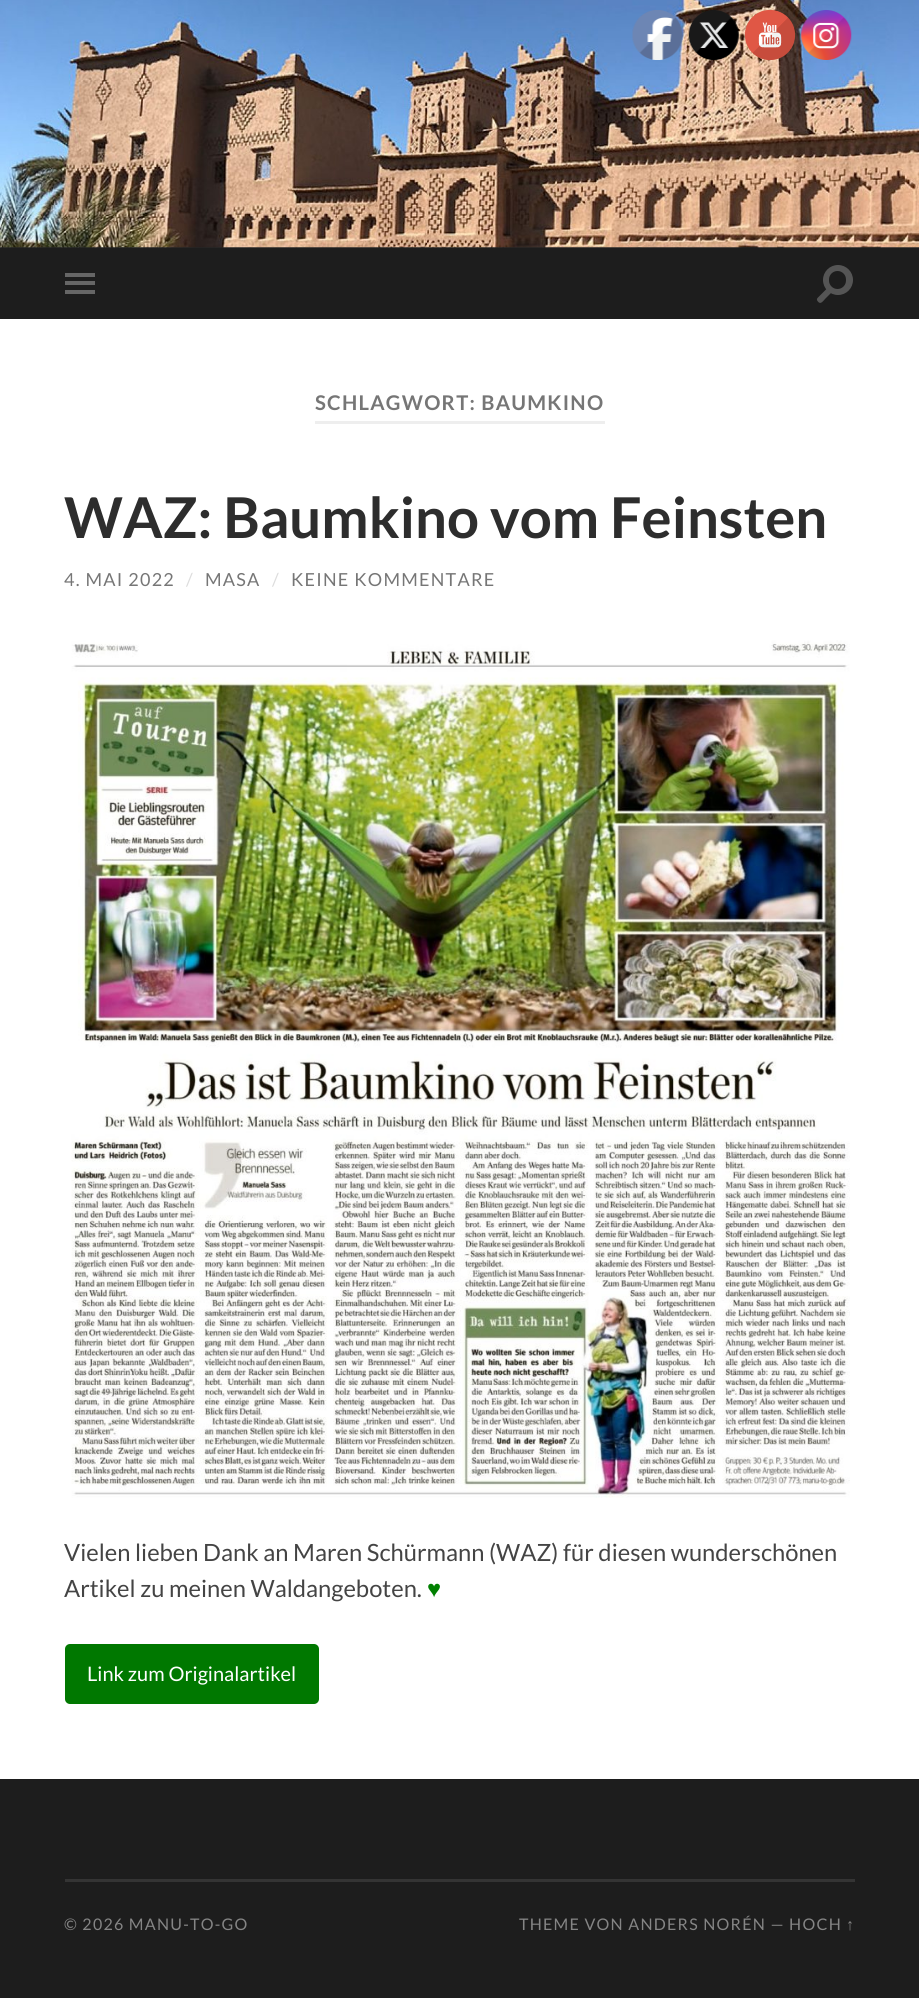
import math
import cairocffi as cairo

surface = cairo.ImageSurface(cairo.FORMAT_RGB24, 919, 1998)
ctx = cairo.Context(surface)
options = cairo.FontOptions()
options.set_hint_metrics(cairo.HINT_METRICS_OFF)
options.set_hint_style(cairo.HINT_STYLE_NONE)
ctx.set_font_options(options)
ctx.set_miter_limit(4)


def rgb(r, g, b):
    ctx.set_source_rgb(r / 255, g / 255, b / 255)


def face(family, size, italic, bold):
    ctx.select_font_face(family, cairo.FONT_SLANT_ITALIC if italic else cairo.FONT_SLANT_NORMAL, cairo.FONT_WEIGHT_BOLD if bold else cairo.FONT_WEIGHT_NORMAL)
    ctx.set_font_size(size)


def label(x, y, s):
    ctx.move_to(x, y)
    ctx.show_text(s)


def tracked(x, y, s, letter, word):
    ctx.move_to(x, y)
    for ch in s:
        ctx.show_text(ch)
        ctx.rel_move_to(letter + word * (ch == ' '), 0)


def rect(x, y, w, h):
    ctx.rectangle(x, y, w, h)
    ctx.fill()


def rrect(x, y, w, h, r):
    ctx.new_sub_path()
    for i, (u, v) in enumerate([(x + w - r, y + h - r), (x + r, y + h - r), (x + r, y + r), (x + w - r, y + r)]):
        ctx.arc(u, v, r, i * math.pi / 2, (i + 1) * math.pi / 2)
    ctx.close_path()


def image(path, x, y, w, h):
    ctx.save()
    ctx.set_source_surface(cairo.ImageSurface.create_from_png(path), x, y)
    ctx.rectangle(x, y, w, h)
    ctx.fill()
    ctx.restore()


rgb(255, 255, 255)
ctx.paint()
rgb(38, 38, 38)
rect(0, 247, 919, 1)
image('image4.png', 0, 0, 919, 248)
image('image0.png', 632, 10, 51, 50)
image('image1.png', 688, 10, 51, 50)
image('image2.png', 745, 10, 50, 50)
image('image3.png', 801, 10, 51, 50)
rgb(29, 29, 29)
rect(0, 248, 919, 71)
rgb(102, 102, 102)
rect(65, 273, 30, 4)
rect(65, 281, 30, 4)
rect(65, 290, 30, 4)
rgb(85, 85, 85)
ctx.arc(838, 280, 15, 0, 2 * math.pi)
ctx.fill()
rgb(29, 29, 29)
rrect(829, 271, 17, 18, 8.5)
ctx.fill()
rgb(85, 85, 85)
ctx.new_path()
ctx.move_to(817.5, 298)
ctx.line_to(828.5, 287)
ctx.line_to(832.5, 291.5)
ctx.line_to(825.5, 298.5)
ctx.curve_to(823, 301, 820.5, 305.5, 817.5, 301)
ctx.curve_to(816.5, 300, 817, 298.5, 817.5, 298)
ctx.close_path()
ctx.fill()
rgb(238, 238, 238)
rect(315, 421, 290, 3)
face('Lato', 20.25, 0, 1)
rgb(118, 118, 118)
tracked(315, 410, 'SCHLAGWORT: BAUMKINO', 1.25, 0)
face('Lato', 56.25, 0, 1)
rgb(45, 45, 45)
label(64, 538, 'WAZ: Baumkino vom Feinsten')
face('Lato', 18, 0, 0)
rgb(118, 118, 118)
tracked(64, 586, '4. MAI 2022', 1.25, 0)
rgb(221, 221, 221)
tracked(186, 586, '/', 1.25, 0)
rgb(118, 118, 118)
tracked(205, 586, 'MASA', 1.25, 0)
rgb(221, 221, 221)
tracked(272, 586, '/', 1.25, 0)
rgb(118, 118, 118)
tracked(291, 586, 'KEINE KOMMENTARE', 1.25, 0)
image('image5.png', 71, 640, 779, 858)
face('Lato', 23.75, 0, 0)
rgb(68, 68, 68)
label(64, 1561, 'Vielen lieben Dank an Maren Schürmann (WAZ) für diesen wunderschönen')
label(64, 1597, 'Artikel zu meinen Waldangeboten.')
face('Liberation Sans', 23.75, 0, 0)
rgb(0, 128, 0)
label(427, 1597, '♥')
rgb(0, 120, 0)
rrect(65, 1644, 254, 60, 5)
ctx.fill()
face('Lato', 20, 0, 0)
rgb(255, 255, 255)
label(87, 1681, 'Link zum Originalartikel')
rgb(29, 29, 29)
rect(0, 1779, 919, 219)
rgb(52, 52, 52)
rect(65, 1879, 790, 3)
face('Lato', 16, 0, 0)
rgb(133, 133, 133)
tracked(64, 1930, '© 2026 MANU-TO-GO', 1.25, 0)
tracked(519, 1930, 'THEME VON ANDERS NORÉN — HOCH', 1.25, 0)
face('Liberation Sans', 16, 0, 0)
tracked(846, 1930, '↑', 1.25, 0)
surface.write_to_png('render.png')
